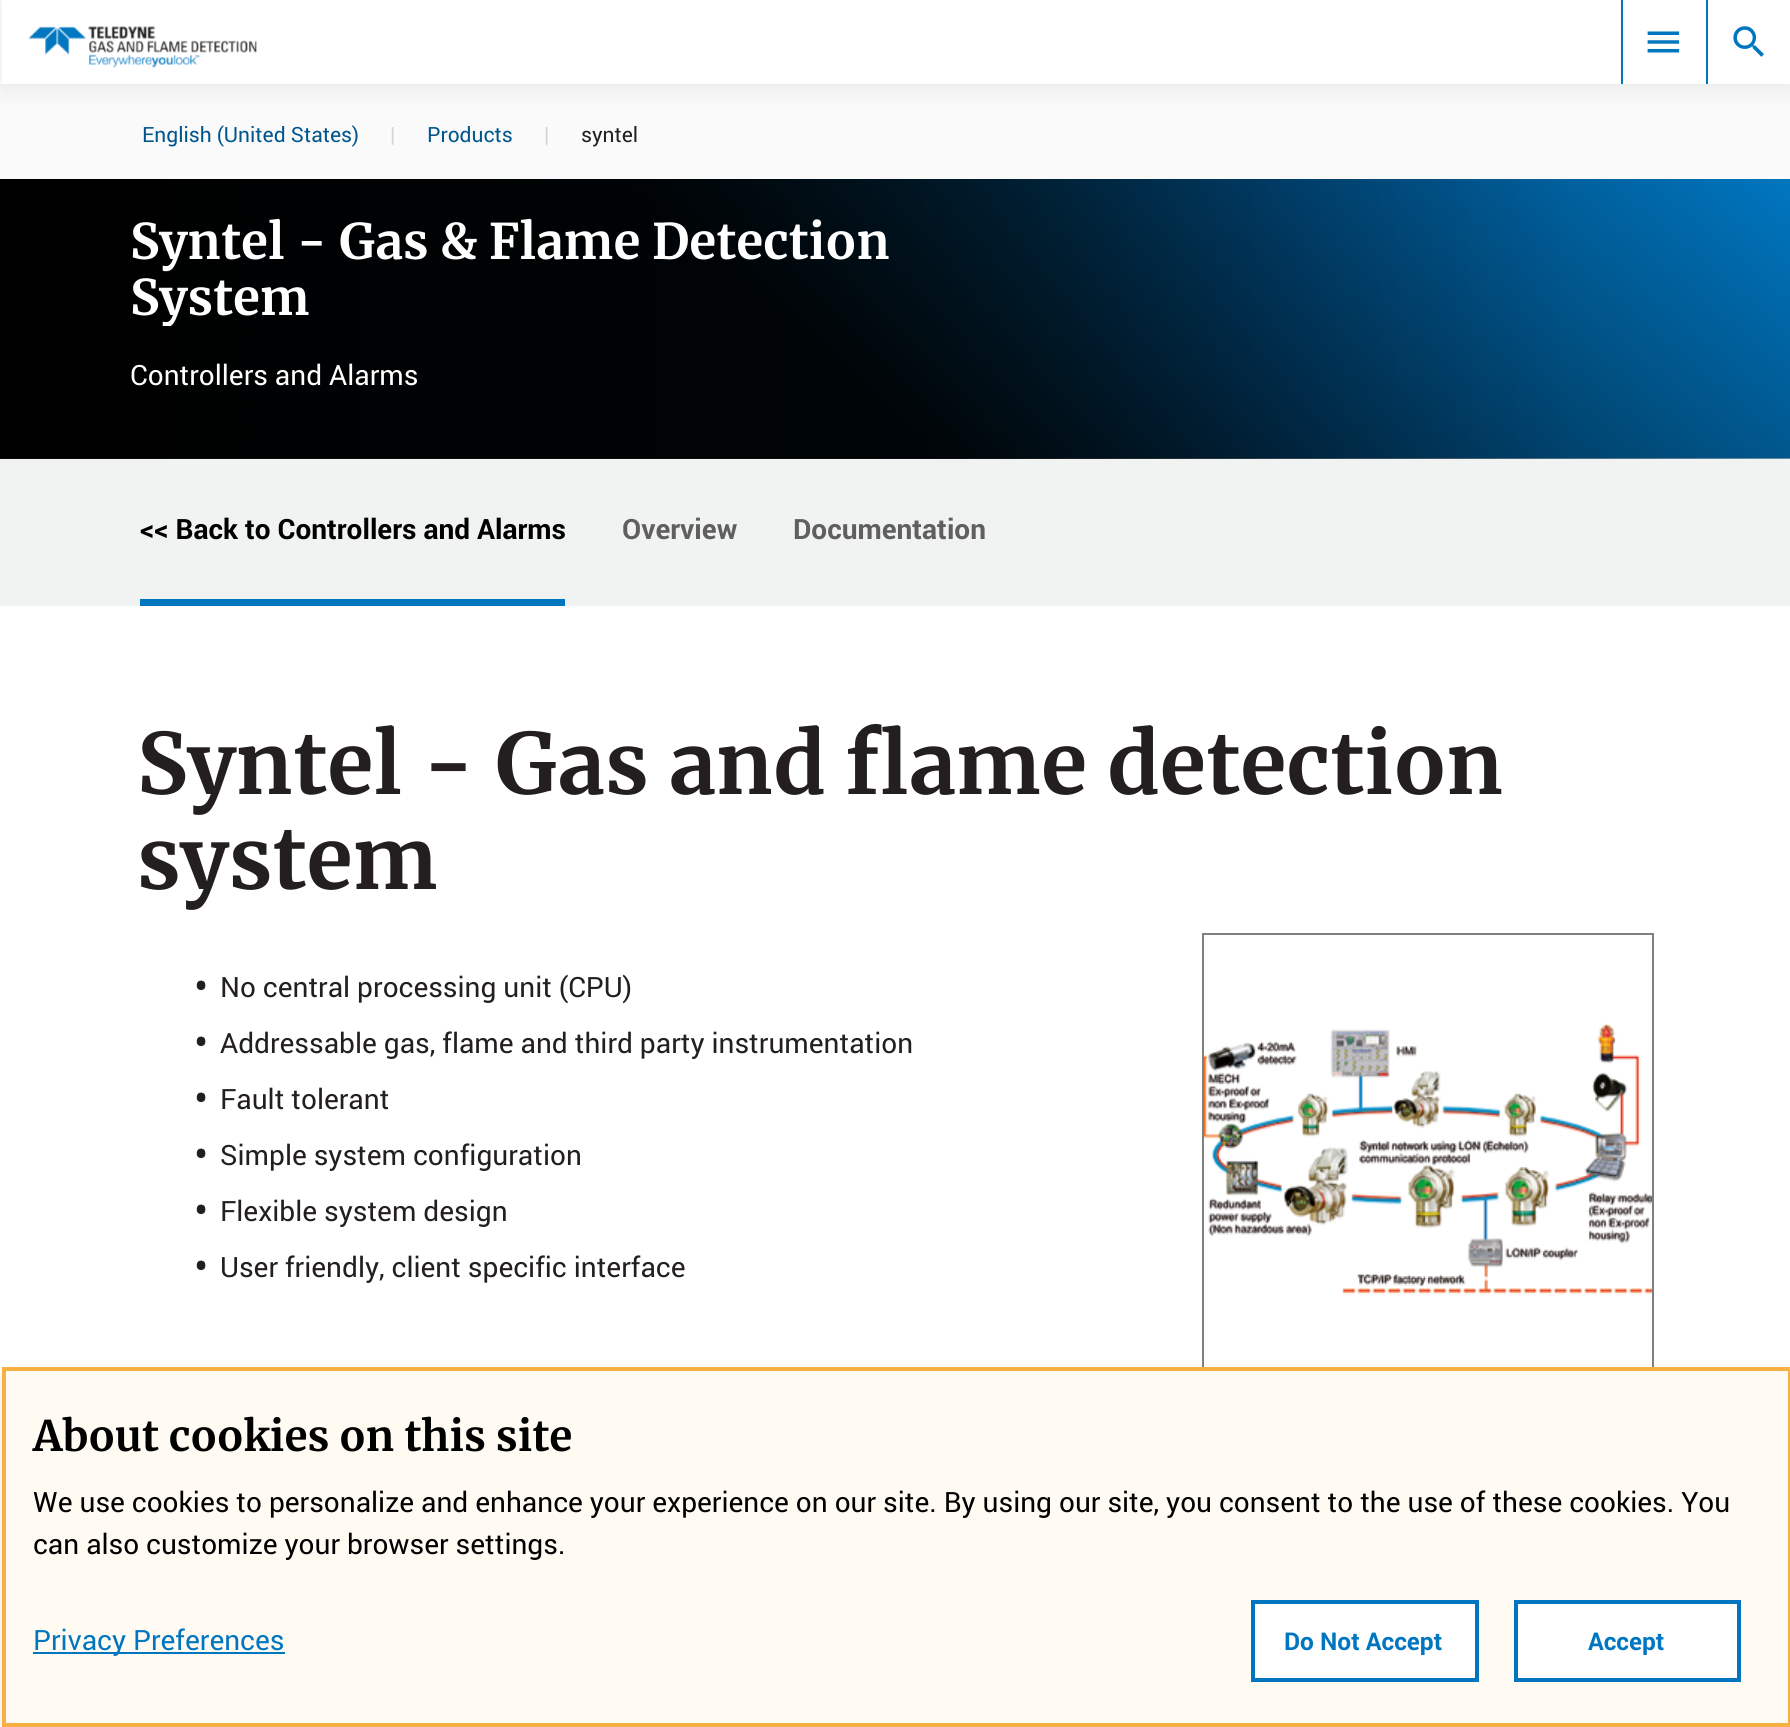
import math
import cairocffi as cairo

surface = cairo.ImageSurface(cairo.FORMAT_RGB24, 1790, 1727)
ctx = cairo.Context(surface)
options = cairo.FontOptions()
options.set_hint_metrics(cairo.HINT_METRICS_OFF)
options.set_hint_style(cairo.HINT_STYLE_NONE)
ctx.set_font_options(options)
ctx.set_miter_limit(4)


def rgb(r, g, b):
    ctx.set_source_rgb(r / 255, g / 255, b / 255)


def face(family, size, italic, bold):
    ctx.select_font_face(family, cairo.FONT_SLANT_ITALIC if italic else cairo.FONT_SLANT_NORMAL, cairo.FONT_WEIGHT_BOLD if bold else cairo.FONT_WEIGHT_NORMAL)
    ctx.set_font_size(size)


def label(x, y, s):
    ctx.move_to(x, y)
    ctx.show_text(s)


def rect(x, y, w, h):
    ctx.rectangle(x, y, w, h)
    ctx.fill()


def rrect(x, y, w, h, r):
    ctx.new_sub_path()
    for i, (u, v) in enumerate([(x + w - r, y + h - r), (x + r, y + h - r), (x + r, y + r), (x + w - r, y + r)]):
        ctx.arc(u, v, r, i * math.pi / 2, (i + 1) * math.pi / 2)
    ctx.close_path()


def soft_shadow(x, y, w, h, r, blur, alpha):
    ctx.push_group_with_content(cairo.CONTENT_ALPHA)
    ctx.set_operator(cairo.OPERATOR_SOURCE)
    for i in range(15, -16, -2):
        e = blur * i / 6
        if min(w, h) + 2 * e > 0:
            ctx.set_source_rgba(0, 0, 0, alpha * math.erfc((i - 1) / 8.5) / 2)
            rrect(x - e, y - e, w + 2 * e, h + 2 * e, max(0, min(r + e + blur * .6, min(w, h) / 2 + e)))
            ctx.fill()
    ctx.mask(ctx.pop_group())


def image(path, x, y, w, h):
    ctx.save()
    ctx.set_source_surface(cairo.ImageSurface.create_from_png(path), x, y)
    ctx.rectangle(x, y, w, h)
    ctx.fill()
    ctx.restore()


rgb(255, 255, 255)
ctx.paint()
rgb(250, 250, 250)
rect(0, 84, 1790, 95)
ctx.save()
ctx.set_fill_rule(cairo.FILL_RULE_EVEN_ODD)
ctx.new_path()
ctx.move_to(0, 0)
ctx.line_to(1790, 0)
ctx.line_to(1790, 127)
ctx.line_to(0, 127)
ctx.close_path()
ctx.move_to(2, 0)
ctx.line_to(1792, 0)
ctx.line_to(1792, 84)
ctx.line_to(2, 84)
ctx.close_path()
ctx.clip()
rgb(0, 0, 0)
soft_shadow(2, 0, 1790, 84, 0, 14, 0.1)
ctx.restore()
image('image0.png', 28, 26, 229, 42)
rgb(0, 118, 192)
rect(1706, 0, 2, 84)
rect(1621, 0, 2, 84)
image('image1.png', 1647, 31, 33, 22)
image('image2.png', 1733, 26, 31, 31)
face('Roboto', 21, 0, 0)
rgb(0, 86, 140)
label(142, 142, 'English (United States)')
rgb(209, 211, 212)
label(390, 142, '|')
rgb(0, 86, 140)
label(427, 142, 'Products')
rgb(209, 211, 212)
label(544, 142, '|')
rgb(35, 31, 32)
label(581, 142, 'syntel')
image('image3.png', 0, 179, 1790, 280)
gradient = cairo.LinearGradient(456, 841, 1334, -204)
gradient.add_color_stop_rgba(0.45, 0, 0, 0, 0.92)
gradient.add_color_stop_rgba(1, 0, 0, 0, 0)
ctx.set_source(gradient)
rect(0, 179, 1790, 280)
face('Merriweather', 49, 0, 1)
rgb(255, 255, 255)
label(130, 259, 'Syntel - Gas & Flame Detection')
ctx.save()
ctx.rectangle(130, 214, 766, 112)
ctx.clip()
label(130, 315, 'System')
ctx.restore()
face('Roboto', 28, 0, 0)
label(130, 385, 'Controllers and Alarms')
rgb(241, 242, 242)
rect(0, 459, 1790, 147)
rgb(0, 118, 192)
rect(140, 599, 425, 7)
face('Roboto', 28, 0, 1)
rgb(0, 0, 0)
label(140, 539, '<< Back to Controllers and Alarms')
rgb(95, 95, 95)
label(622, 539, 'Overview')
label(793, 539, 'Documentation')
face('Merriweather', 84, 0, 1)
rgb(35, 31, 32)
label(137, 794, 'Syntel - Gas and flame detection')
label(137, 889, 'system')
face('Roboto', 42, 0, 0)
label(194, 1001, '•')
face('Roboto', 28, 0, 0)
label(220, 997, 'No central processing unit (CPU)')
face('Roboto', 42, 0, 0)
label(194, 1057, '•')
face('Roboto', 28, 0, 0)
label(220, 1053, 'Addressable gas, flame and third party instrumentation')
face('Roboto', 42, 0, 0)
label(194, 1113, '•')
face('Roboto', 28, 0, 0)
label(220, 1109, 'Fault tolerant')
face('Roboto', 42, 0, 0)
label(194, 1169, '•')
face('Roboto', 28, 0, 0)
label(220, 1165, 'Simple system configuration')
face('Roboto', 42, 0, 0)
label(194, 1225, '•')
face('Roboto', 28, 0, 0)
label(220, 1221, 'Flexible system design')
face('Roboto', 42, 0, 0)
label(194, 1281, '•')
face('Roboto', 28, 0, 0)
label(220, 1277, 'User friendly, client specific interface')
ctx.rectangle(1203, 934, 450, 449)
rgb(127, 127, 127)
ctx.stroke()
image('image4.png', 1204, 1023, 448, 272)
rgb(0, 0, 0)
soft_shadow(2, 1376, 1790, 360, 0, 4.5, 0.1)
rgb(255, 250, 242)
ctx.rectangle(4, 1369, 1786, 356)
ctx.fill_preserve()
rgb(248, 175, 67)
ctx.set_line_width(4)
ctx.stroke()
face('Merriweather', 42, 0, 1)
rgb(0, 0, 0)
label(33, 1451, 'About cookies on this site')
face('Roboto', 28, 0, 0)
label(33, 1512, 'We use cookies to personalize and enhance your experience on our site. By using our site, you consent to the use of these cookies. You')
label(33, 1554, 'can also customize your browser settings.')
rgb(0, 118, 192)
rect(33, 1652, 252, 2)
label(33, 1650, 'Privacy Preferences')
rgb(255, 255, 255)
ctx.rectangle(1253, 1602, 224, 78)
ctx.fill_preserve()
rgb(0, 118, 192)
ctx.stroke()
face('Roboto', 24.5, 0, 1)
label(1284, 1650, 'Do Not Accept')
rgb(255, 255, 255)
ctx.rectangle(1516, 1602, 223, 78)
ctx.fill_preserve()
rgb(0, 118, 192)
ctx.stroke()
label(1588, 1650, 'Accept')
surface.write_to_png('render.png')
